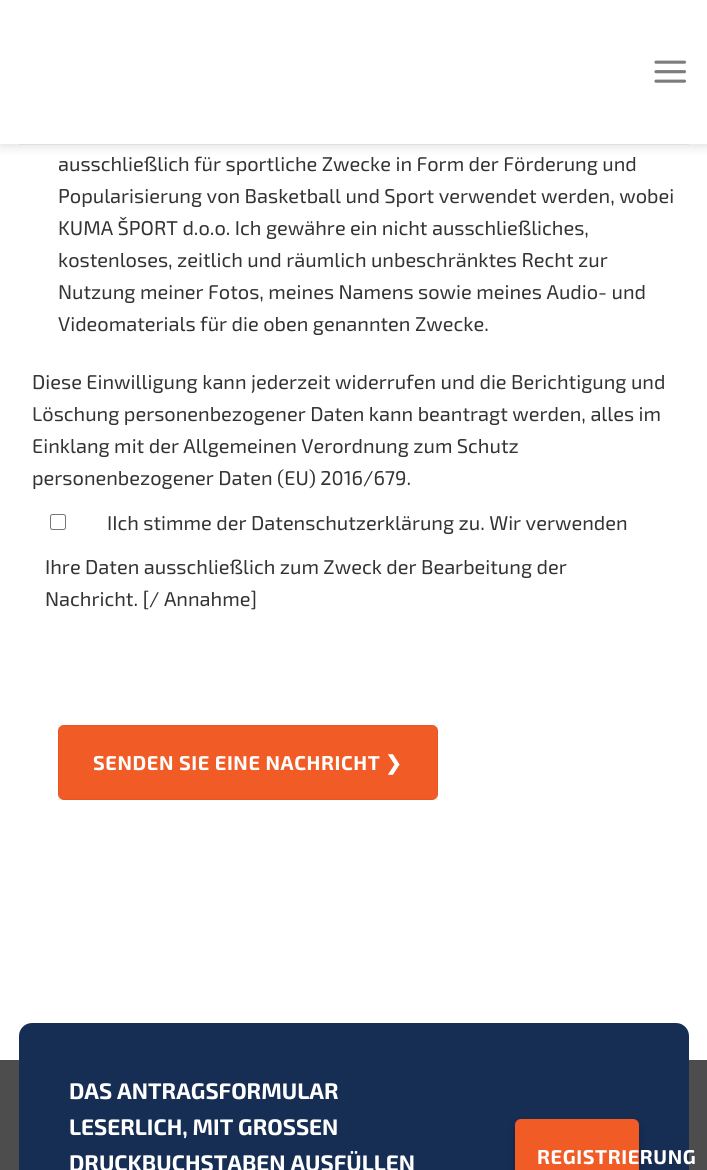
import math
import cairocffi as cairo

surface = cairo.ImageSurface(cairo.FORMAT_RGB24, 707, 1170)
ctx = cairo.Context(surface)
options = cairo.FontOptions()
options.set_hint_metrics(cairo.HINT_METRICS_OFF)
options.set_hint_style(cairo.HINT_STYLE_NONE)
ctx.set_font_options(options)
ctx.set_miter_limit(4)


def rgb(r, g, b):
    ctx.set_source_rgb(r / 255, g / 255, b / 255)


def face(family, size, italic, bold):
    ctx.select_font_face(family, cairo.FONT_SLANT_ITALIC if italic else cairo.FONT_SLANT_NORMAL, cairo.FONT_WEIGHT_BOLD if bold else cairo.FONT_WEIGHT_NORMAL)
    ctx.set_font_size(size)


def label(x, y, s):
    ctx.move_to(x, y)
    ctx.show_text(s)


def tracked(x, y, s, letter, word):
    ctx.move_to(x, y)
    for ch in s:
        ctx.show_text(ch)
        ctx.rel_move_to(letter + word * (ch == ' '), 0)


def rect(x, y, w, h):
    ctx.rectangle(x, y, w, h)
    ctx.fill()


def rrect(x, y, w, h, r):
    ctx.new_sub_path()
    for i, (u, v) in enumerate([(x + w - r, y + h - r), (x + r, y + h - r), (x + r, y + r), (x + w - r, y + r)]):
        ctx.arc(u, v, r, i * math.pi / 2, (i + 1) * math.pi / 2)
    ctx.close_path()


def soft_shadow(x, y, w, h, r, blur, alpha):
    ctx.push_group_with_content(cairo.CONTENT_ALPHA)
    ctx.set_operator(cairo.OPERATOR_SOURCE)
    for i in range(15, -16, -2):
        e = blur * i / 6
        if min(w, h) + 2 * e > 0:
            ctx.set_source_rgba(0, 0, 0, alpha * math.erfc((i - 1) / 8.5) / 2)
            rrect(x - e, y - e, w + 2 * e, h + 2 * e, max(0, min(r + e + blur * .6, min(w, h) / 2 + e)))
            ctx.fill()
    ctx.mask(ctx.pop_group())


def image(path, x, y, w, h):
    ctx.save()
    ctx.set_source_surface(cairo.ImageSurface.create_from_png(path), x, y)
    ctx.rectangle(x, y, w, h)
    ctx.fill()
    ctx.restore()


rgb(255, 255, 255)
ctx.paint()
rgb(0, 0, 0)
soft_shadow(1, 1, 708, 144, 0, 6, 0.15)
rgb(255, 255, 255)
rect(0, 0, 707, 144)
image('image0.png', 654, 60, 33, 23)
rgb(223, 223, 223)
rect(19, 144, 670, 1)
face('Exo 2', 20, 0, 0)
rgb(51, 51, 51)
label(58, 171, 'ausschließlich für sportliche Zwecke in Form der Förderung und')
label(58, 203, 'Popularisierung von Basketball und Sport verwendet werden, wobei')
label(58, 235, 'KUMA ŠPORT d.o.o. Ich gewähre ein nicht ausschließliches,')
label(58, 267, 'kostenloses, zeitlich und räumlich unbeschränktes Recht zur')
label(58, 299, 'Nutzung meiner Fotos, meines Namens sowie meines Audio- und')
label(58, 331, 'Videomaterials für die oben genannten Zwecke.')
label(32, 389, 'Diese Einwilligung kann jederzeit widerrufen und die Berichtigung und')
label(32, 421, 'Löschung personenbezogener Daten kann beantragt werden, alles im')
label(32, 453, 'Einklang mit der Allgemeinen Verordnung zum Schutz')
label(32, 485, 'personenbezogener Daten (EU) 2016/679.')
rrect(50.5, 514.5, 15, 15, 2)
rgb(118, 118, 118)
ctx.set_line_width(1)
ctx.stroke()
rgb(51, 51, 51)
label(107, 530, 'IIch stimme der Datenschutzerklärung zu. Wir verwenden')
label(45, 574, 'Ihre Daten ausschließlich zum Zweck der Bearbeitung der')
label(45, 606, 'Nachricht. [/ Annahme]')
rgb(241, 91, 38)
rrect(58, 725, 380, 75, 6)
ctx.fill()
ctx.rectangle(58.5, 725.5, 379, 74)
ctx.set_source_rgba(0, 0, 0, 0.05)
ctx.stroke()
face('Exo 2', 20, 0, 1)
rgb(255, 255, 255)
tracked(93, 770, 'SENDEN SIE EINE NACHRICHT', 0.6, 0)
face('DejaVu Sans', 20, 0, 1)
tracked(385, 770, '❯', 0.6, 0)
rgb(77, 77, 77)
rect(0, 1060, 707, 110)
rgb(22, 45, 84)
rrect(19, 1023, 670, 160, 13)
ctx.fill()
face('Exo 2', 22.5, 0, 1)
rgb(255, 255, 255)
label(69, 1099, 'DAS ANTRAGSFORMULAR')
label(69, 1135, 'LESERLICH, MIT GROSSEN')
label(69, 1171, 'DRUCKBUCHSTABEN AUSFÜLLEN')
rgb(0, 0, 0)
soft_shadow(515, 1123, 124, 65, 6, 4, 0.23)
rgb(241, 91, 38)
rrect(516.5, 1120.5, 121, 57, 4.5)
ctx.fill_preserve()
ctx.set_line_width(3)
ctx.stroke()
face('Exo 2', 20, 0, 1)
rgb(255, 255, 255)
tracked(537, 1164, 'REGISTRIERUNG', 0.6, 0)
surface.write_to_png('render.png')
